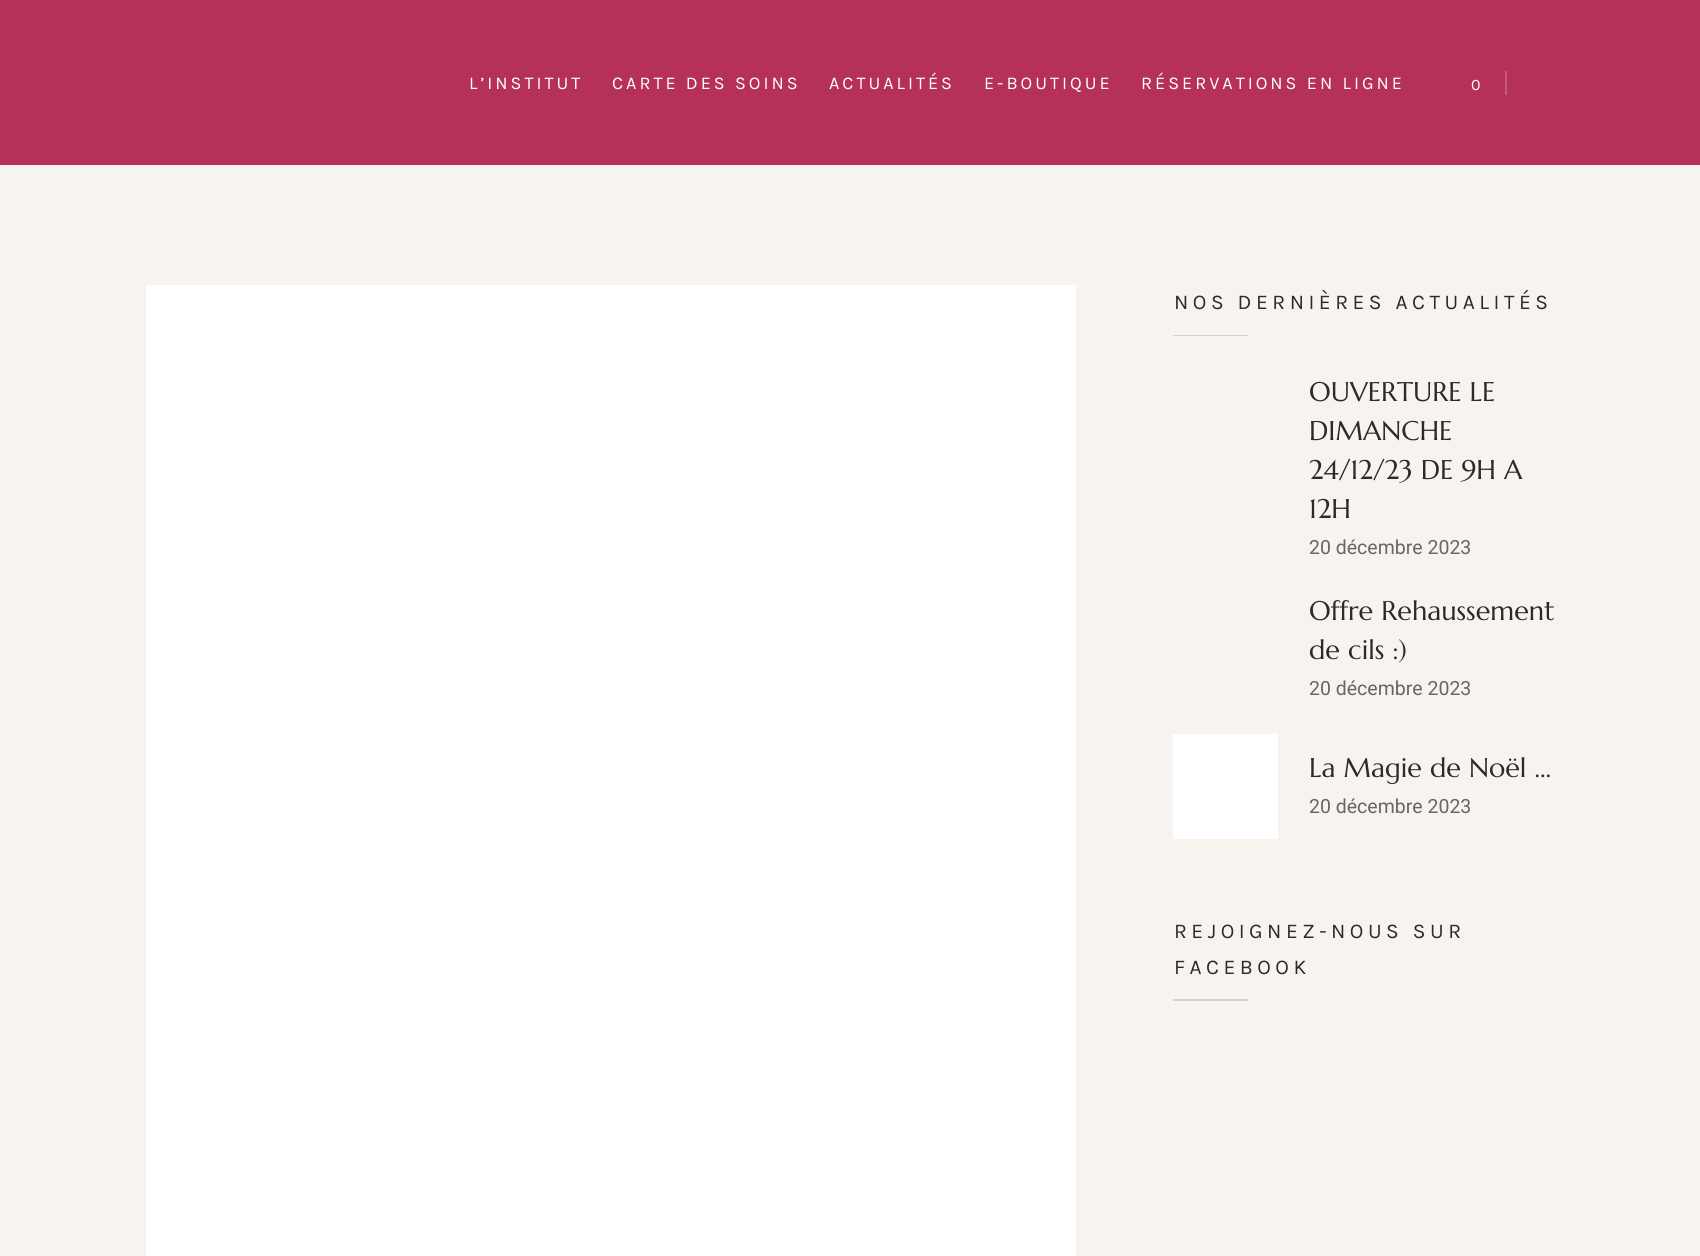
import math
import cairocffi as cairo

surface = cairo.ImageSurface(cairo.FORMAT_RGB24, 1700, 1256)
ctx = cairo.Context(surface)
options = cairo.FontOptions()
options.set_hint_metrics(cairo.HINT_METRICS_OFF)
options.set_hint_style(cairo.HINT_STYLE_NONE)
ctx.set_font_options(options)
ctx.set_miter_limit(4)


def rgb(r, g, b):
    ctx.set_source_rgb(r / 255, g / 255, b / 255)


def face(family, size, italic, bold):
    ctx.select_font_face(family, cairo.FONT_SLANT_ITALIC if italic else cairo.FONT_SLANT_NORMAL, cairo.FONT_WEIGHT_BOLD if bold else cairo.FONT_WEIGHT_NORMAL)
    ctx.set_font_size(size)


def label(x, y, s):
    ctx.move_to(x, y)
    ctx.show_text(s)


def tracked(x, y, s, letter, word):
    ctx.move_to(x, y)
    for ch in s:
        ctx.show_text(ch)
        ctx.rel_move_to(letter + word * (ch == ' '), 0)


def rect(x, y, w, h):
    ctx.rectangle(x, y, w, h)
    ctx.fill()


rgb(247, 244, 240)
ctx.paint()
rgb(181, 49, 90)
rect(0, 0, 1700, 165)
face('Karla', 18, 0, 0)
rgb(255, 255, 255)
tracked(469, 89, 'L’INSTITUT', 3, 0)
tracked(612, 89, 'CARTE DES SOINS', 3, 0)
tracked(829, 89, 'ACTUALITÉS', 3, 0)
tracked(984, 89, 'E-BOUTIQUE', 3, 0)
tracked(1141, 89, 'RÉSERVATIONS EN LIGNE', 3, 0)
face('Karla', 16, 0, 0)
tracked(1471, 90, '0', 3, 0)
rgb(196, 90, 123)
rect(1505, 71, 2, 24)
rgb(255, 255, 255)
rect(146, 285, 930, 971)
face('Karla', 21, 0, 0)
rgb(45, 42, 39)
tracked(1174, 309, 'NOS DERNIÈRES ACTUALITÉS', 4.5, 0)
rgb(216, 211, 210)
rect(1173, 335, 75, 1)
face('Marcellus', 27, 0, 0)
rgb(45, 42, 39)
label(1309, 401, 'OUVERTURE LE')
label(1309, 440, 'DIMANCHE')
label(1309, 479, '24/12/23 DE 9H A')
label(1309, 518, '12H')
face('Roboto', 19.5, 0, 0)
rgb(106, 101, 96)
label(1309, 554, '20 décembre 2023')
face('Marcellus', 27, 0, 0)
rgb(45, 42, 39)
label(1309, 620, 'Offre Rehaussement')
label(1309, 659, 'de cils :)')
face('Roboto', 19.5, 0, 0)
rgb(106, 101, 96)
label(1309, 695, '20 décembre 2023')
rgb(255, 255, 255)
rect(1173, 734, 105, 105)
face('Marcellus', 27, 0, 0)
rgb(45, 42, 39)
label(1309, 777, 'La Magie de Noël …')
face('Roboto', 19.5, 0, 0)
rgb(106, 101, 96)
label(1309, 813, '20 décembre 2023')
face('Karla', 21, 0, 0)
rgb(45, 42, 39)
tracked(1174, 938, 'REJOIGNEZ-NOUS SUR', 4.5, 0)
tracked(1174, 974, 'FACEBOOK', 4.5, 0)
rgb(216, 211, 210)
rect(1173, 999, 75, 2)
surface.write_to_png('render.png')
